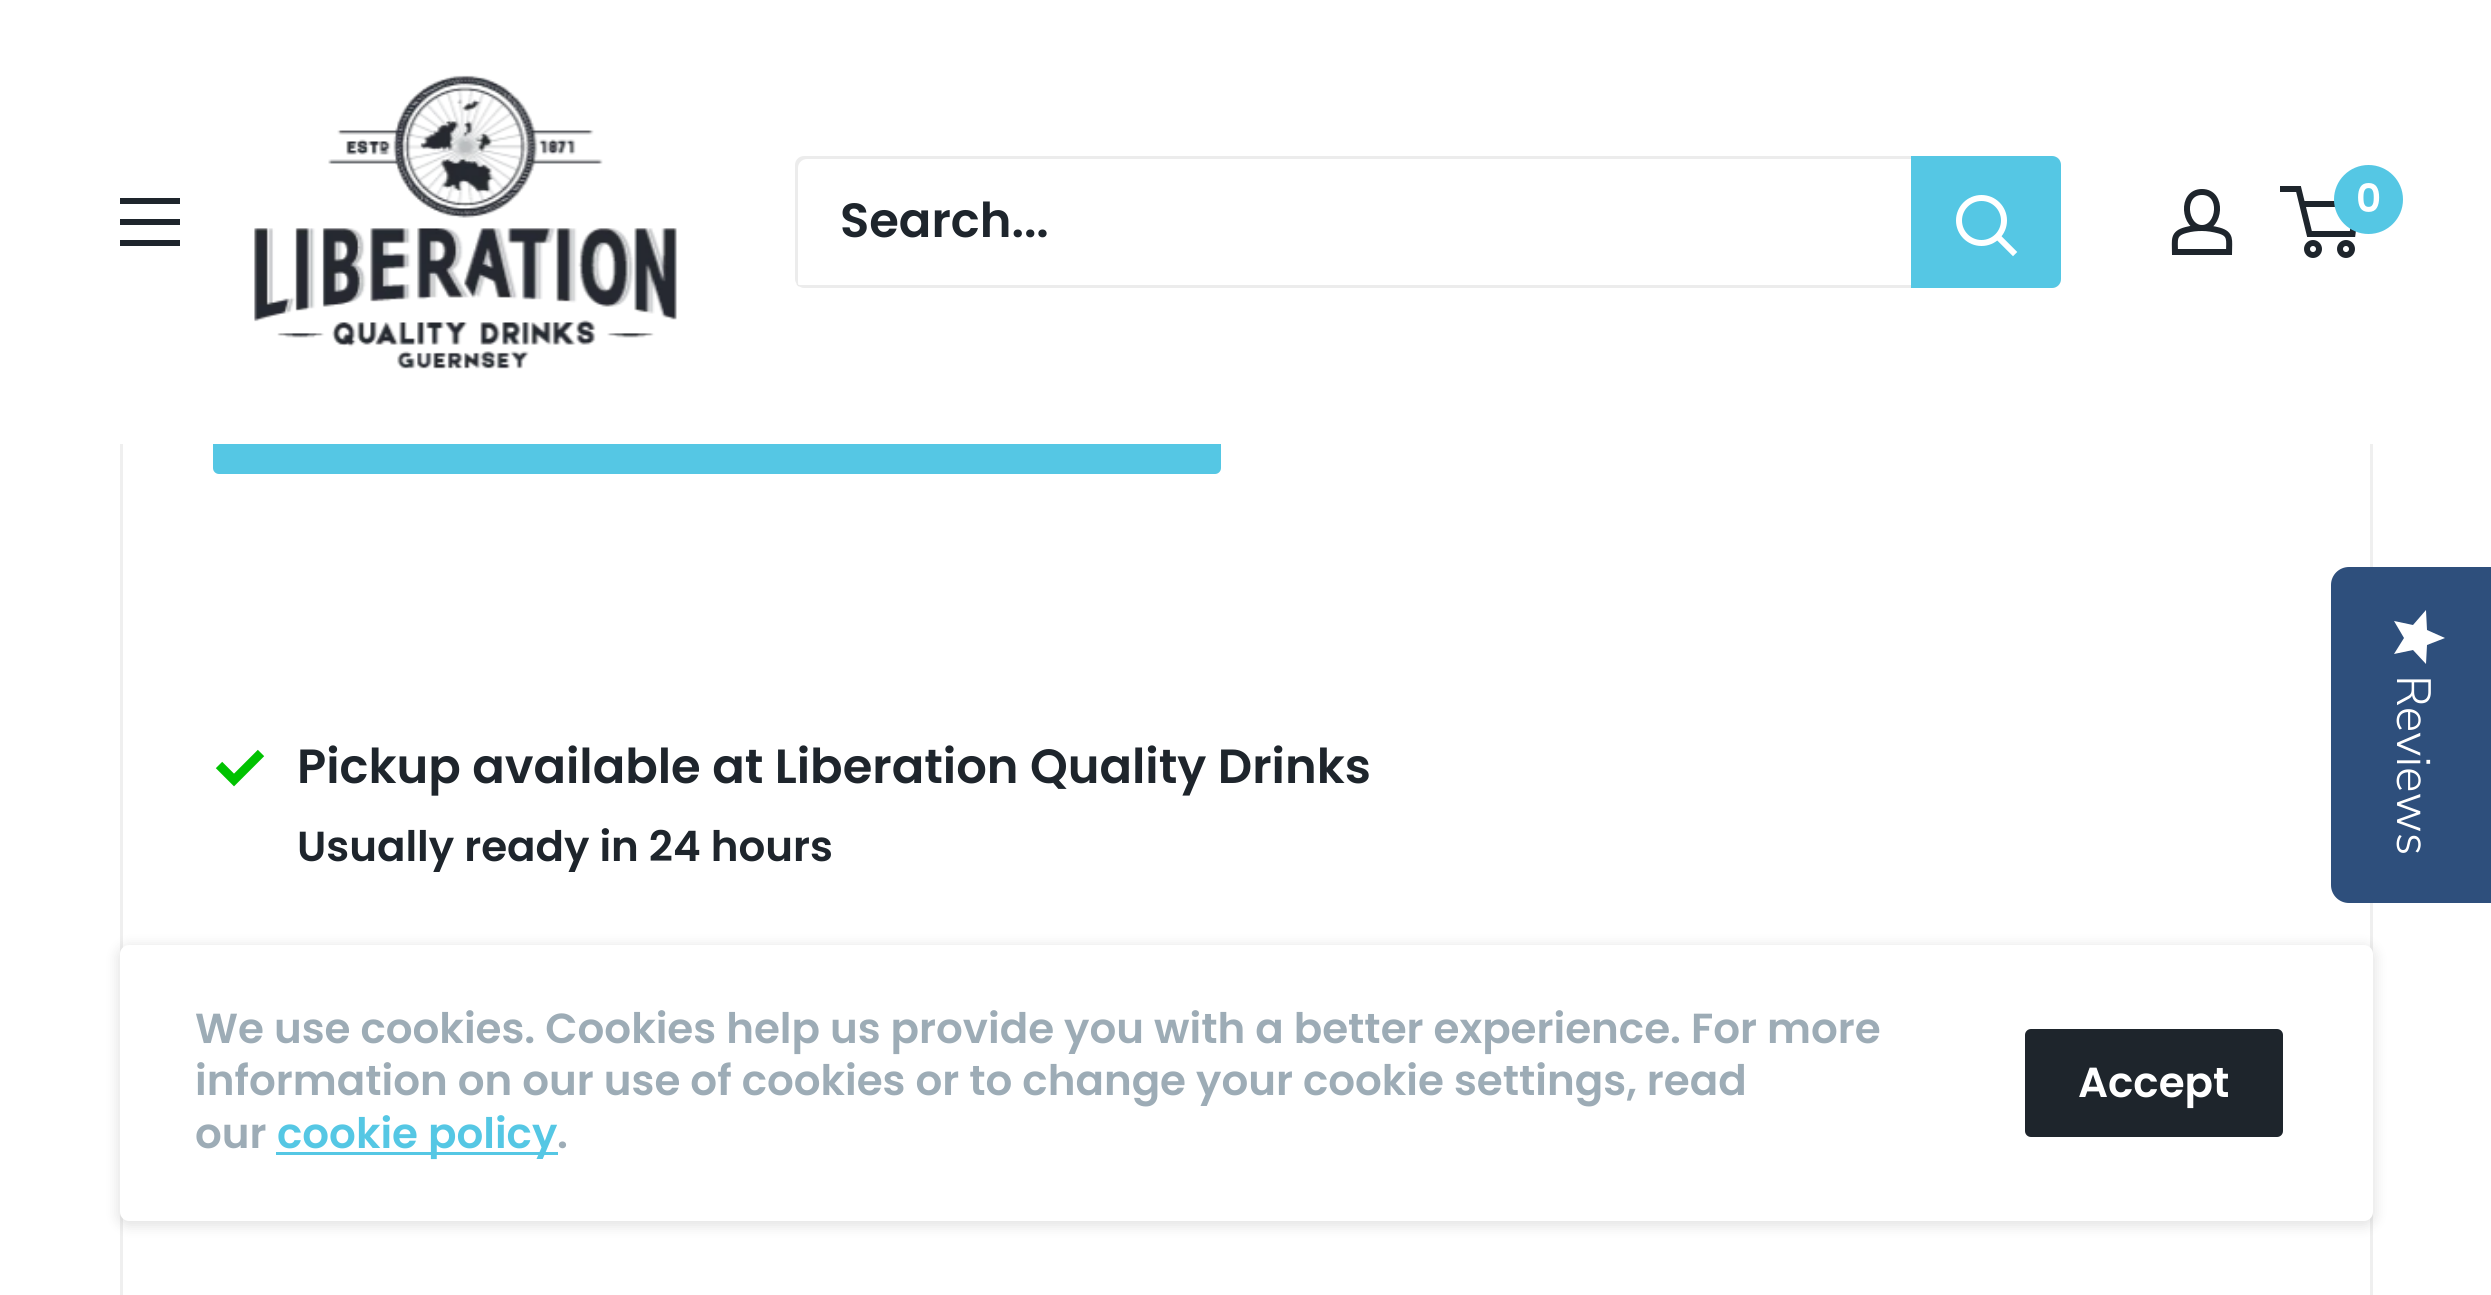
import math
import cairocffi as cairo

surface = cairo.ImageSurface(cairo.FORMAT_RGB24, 2491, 1295)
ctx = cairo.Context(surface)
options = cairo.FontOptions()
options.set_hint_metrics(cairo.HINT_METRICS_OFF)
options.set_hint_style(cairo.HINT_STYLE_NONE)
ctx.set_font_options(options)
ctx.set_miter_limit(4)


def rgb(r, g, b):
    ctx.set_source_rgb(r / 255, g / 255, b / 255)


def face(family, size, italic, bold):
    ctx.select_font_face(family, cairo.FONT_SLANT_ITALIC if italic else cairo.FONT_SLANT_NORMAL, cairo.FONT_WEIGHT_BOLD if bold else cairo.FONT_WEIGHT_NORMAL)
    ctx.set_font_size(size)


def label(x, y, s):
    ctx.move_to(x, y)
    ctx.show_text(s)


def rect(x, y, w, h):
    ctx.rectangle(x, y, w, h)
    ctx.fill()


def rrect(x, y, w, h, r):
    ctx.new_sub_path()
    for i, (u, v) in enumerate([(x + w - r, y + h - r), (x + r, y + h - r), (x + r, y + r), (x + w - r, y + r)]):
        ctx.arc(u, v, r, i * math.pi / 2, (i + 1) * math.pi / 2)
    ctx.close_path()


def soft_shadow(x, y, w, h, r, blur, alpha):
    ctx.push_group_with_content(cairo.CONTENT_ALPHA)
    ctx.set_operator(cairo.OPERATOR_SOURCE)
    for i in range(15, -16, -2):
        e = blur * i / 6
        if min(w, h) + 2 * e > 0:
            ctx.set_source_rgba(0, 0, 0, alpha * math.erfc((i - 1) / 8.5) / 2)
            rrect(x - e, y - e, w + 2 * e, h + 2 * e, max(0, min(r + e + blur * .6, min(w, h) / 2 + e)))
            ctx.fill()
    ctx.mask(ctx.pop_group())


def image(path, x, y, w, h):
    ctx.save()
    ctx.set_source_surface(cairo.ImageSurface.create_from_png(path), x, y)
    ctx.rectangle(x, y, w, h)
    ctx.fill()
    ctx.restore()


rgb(255, 255, 255)
ctx.paint()
rgb(239, 239, 239)
ctx.set_fill_rule(cairo.FILL_RULE_EVEN_ODD)
ctx.new_path()
ctx.move_to(129, -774)
ctx.line_to(2364, -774)
ctx.curve_to(2369, -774, 2373, -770, 2373, -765)
ctx.line_to(2373, 1071)
ctx.curve_to(2373, 1076, 2369, 1080, 2364, 1080)
ctx.line_to(129, 1080)
ctx.curve_to(124, 1080, 120, 1076, 120, 1071)
ctx.line_to(120, -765)
ctx.curve_to(120, -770, 124, -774, 129, -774)
ctx.close_path()
ctx.move_to(129, -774)
ctx.line_to(2364, -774)
ctx.curve_to(2367, -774, 2370, -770, 2370, -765)
ctx.line_to(2370, 1071)
ctx.curve_to(2370, 1074, 2367, 1077, 2364, 1077)
ctx.line_to(129, 1077)
ctx.curve_to(126, 1077, 123, 1074, 123, 1071)
ctx.line_to(123, -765)
ctx.curve_to(123, -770, 126, -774, 129, -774)
ctx.close_path()
ctx.fill()
rgb(85, 199, 228)
rrect(213, 330, 1008, 144, 6)
ctx.fill()
rgb(255, 255, 255)
rect(120, 0, 2253, 444)
rgb(30, 37, 44)
ctx.new_path()
ctx.move_to(120, 240)
ctx.line_to(180, 240)
ctx.line_to(180, 246)
ctx.line_to(120, 246)
ctx.close_path()
ctx.move_to(120, 198)
ctx.line_to(180, 198)
ctx.line_to(180, 204)
ctx.line_to(120, 204)
ctx.close_path()
ctx.move_to(120, 219)
ctx.line_to(180, 219)
ctx.line_to(180, 225)
ctx.line_to(120, 225)
ctx.close_path()
ctx.fill()
image('image0.png', 254, 75, 423, 294)
rgb(236, 236, 236)
ctx.set_fill_rule(cairo.FILL_RULE_WINDING)
ctx.new_path()
ctx.move_to(796, 284)
ctx.curve_to(798, 286, 801, 288, 804, 288)
ctx.line_to(2052, 288)
ctx.curve_to(2057, 288, 2061, 284, 2061, 279)
ctx.line_to(2061, 165)
ctx.curve_to(2061, 162, 2059, 159, 2057, 157)
ctx.curve_to(2058, 159, 2058, 160, 2058, 162)
ctx.line_to(2058, 276)
ctx.curve_to(2058, 281, 2054, 285, 2049, 285)
ctx.line_to(801, 285)
ctx.curve_to(799, 285, 798, 285, 796, 284)
ctx.close_path()
ctx.fill()
ctx.set_source_rgba(0.749, 0.749, 0.749, 0.3)
ctx.new_path()
ctx.move_to(807, 159)
ctx.line_to(2055, 159)
ctx.line_to(2060, 160)
ctx.curve_to(2058, 158, 2055, 156, 2052, 156)
ctx.line_to(804, 156)
ctx.curve_to(799, 156, 795, 160, 795, 165)
ctx.line_to(795, 279)
ctx.curve_to(795, 282, 797, 285, 799, 287)
ctx.curve_to(798, 285, 798, 284, 798, 282)
ctx.line_to(798, 168)
ctx.curve_to(798, 163, 802, 159, 807, 159)
ctx.close_path()
ctx.fill()
face('Poppins SemiBold', 48, 0, 0)
rgb(30, 37, 44)
label(840, 237, 'Search...')
rgb(85, 199, 228)
ctx.new_path()
ctx.move_to(1911, 156)
ctx.line_to(2052, 156)
ctx.curve_to(2057, 156, 2061, 160, 2061, 165)
ctx.line_to(2061, 279)
ctx.curve_to(2061, 284, 2057, 288, 2052, 288)
ctx.line_to(1911, 288)
ctx.close_path()
ctx.fill()
ctx.new_path()
ctx.move_to(2013, 252)
ctx.line_to(1998, 237)
rgb(255, 255, 255)
ctx.set_line_width(6)
ctx.set_line_cap(cairo.LINE_CAP_SQUARE)
ctx.stroke()
ctx.arc(1981.5, 220.5, 22.5, 0, 2 * math.pi)
ctx.set_line_cap(cairo.LINE_CAP_BUTT)
ctx.stroke()
ctx.new_path()
ctx.move_to(2202, 228)
ctx.curve_to(2207.5, 228, 2213.5, 229, 2219, 230.5)
ctx.curve_to(2231.5, 234, 2229, 240.5, 2229, 252)
ctx.line_to(2175, 252)
ctx.curve_to(2175, 240, 2172.5, 233.5, 2186, 230)
ctx.curve_to(2191.5, 228.5, 2196.5, 228, 2202, 228)
ctx.close_path()
ctx.move_to(2202, 228)
ctx.curve_to(2184, 228, 2180, 192, 2202, 192)
ctx.curve_to(2224, 192, 2220, 228, 2202, 228)
ctx.close_path()
rgb(30, 37, 44)
ctx.stroke()
ctx.arc(2313, 249, 6, 0, 2 * math.pi)
ctx.stroke()
ctx.arc(2346, 249, 6, 0, 2 * math.pi)
ctx.stroke()
ctx.new_path()
ctx.move_to(2302, 204)
ctx.line_to(2356.5, 204)
ctx.line_to(2352.5, 234)
ctx.line_to(2309.5, 234)
ctx.line_to(2298.5, 189)
ctx.line_to(2280, 189)
ctx.stroke()
rgb(85, 199, 228)
ctx.arc(2368.5, 199.5, 34.5, 0, 2 * math.pi)
ctx.fill()
face('Poppins SemiBold', 39, 0, 0)
rgb(255, 255, 255)
label(2356, 212, '0')
ctx.new_path()
ctx.move_to(219, 765)
ctx.line_to(234, 780)
ctx.line_to(261, 753)
rgb(0, 194, 0)
ctx.set_line_width(9)
ctx.stroke()
face('Poppins SemiBold', 48, 0, 0)
rgb(30, 37, 44)
label(297, 783, 'Pickup available at Liberation Quality Drinks')
face('Poppins SemiBold', 42, 0, 0)
label(297, 861, 'Usually ready in 24 hours')
ctx.rectangle(121.5, 1171.5, 2250, 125)
rgb(239, 239, 239)
ctx.set_line_width(3)
ctx.stroke()
rgb(46, 79, 124)
ctx.new_path()
ctx.move_to(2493, 567)
ctx.line_to(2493, 903)
ctx.line_to(2349, 903)
ctx.curve_to(2339, 903, 2331, 895, 2331, 885)
ctx.line_to(2331, 585)
ctx.curve_to(2331, 575, 2339, 567, 2349, 567)
ctx.close_path()
ctx.fill()
gradient = cairo.LinearGradient(2445, 611, 2445, 665)
gradient.add_color_stop_rgba(1, 1, 1, 1, 1)
gradient.add_color_stop_rgba(1, 0.918, 0.918, 0.918, 1)
ctx.set_source(gradient)
ctx.new_path()
ctx.move_to(2404, 638)
ctx.line_to(2394, 654)
ctx.line_to(2413, 650)
ctx.line_to(2426, 664)
ctx.line_to(2427, 645)
ctx.line_to(2445, 638)
ctx.line_to(2427, 630)
ctx.line_to(2426, 610)
ctx.line_to(2413, 625)
ctx.line_to(2394, 621)
ctx.close_path()
ctx.fill()
face('Nunito Sans Light', 48, 0, 0)
rgb(255, 255, 255)
ctx.save()
ctx.translate(2397, 675)
ctx.rotate(90 * math.pi / 180)
label(0, 0, 'Reviews')
ctx.restore()
rgb(0, 0, 0)
soft_shadow(117, 945, 2259, 282, 12, 6, 0.1)
rgb(255, 255, 255)
rrect(120, 945, 2253, 276, 9)
ctx.fill()
face('Poppins SemiBold', 42, 0, 0)
rgb(157, 172, 182)
label(195, 1043, 'We use cookies. Cookies help us provide you with a better experience. For more')
label(195, 1095, 'information on our use of cookies or to change your cookie settings, read')
label(195, 1148, 'our')
rgb(85, 199, 228)
rect(276, 1152, 282, 3)
label(277, 1148, 'cookie policy')
rgb(157, 172, 182)
label(557, 1148, '.')
rgb(30, 37, 44)
rrect(2025, 1029, 258, 108, 6)
ctx.fill()
rgb(255, 255, 255)
label(2078, 1097, 'Accept')
surface.write_to_png('render.png')
